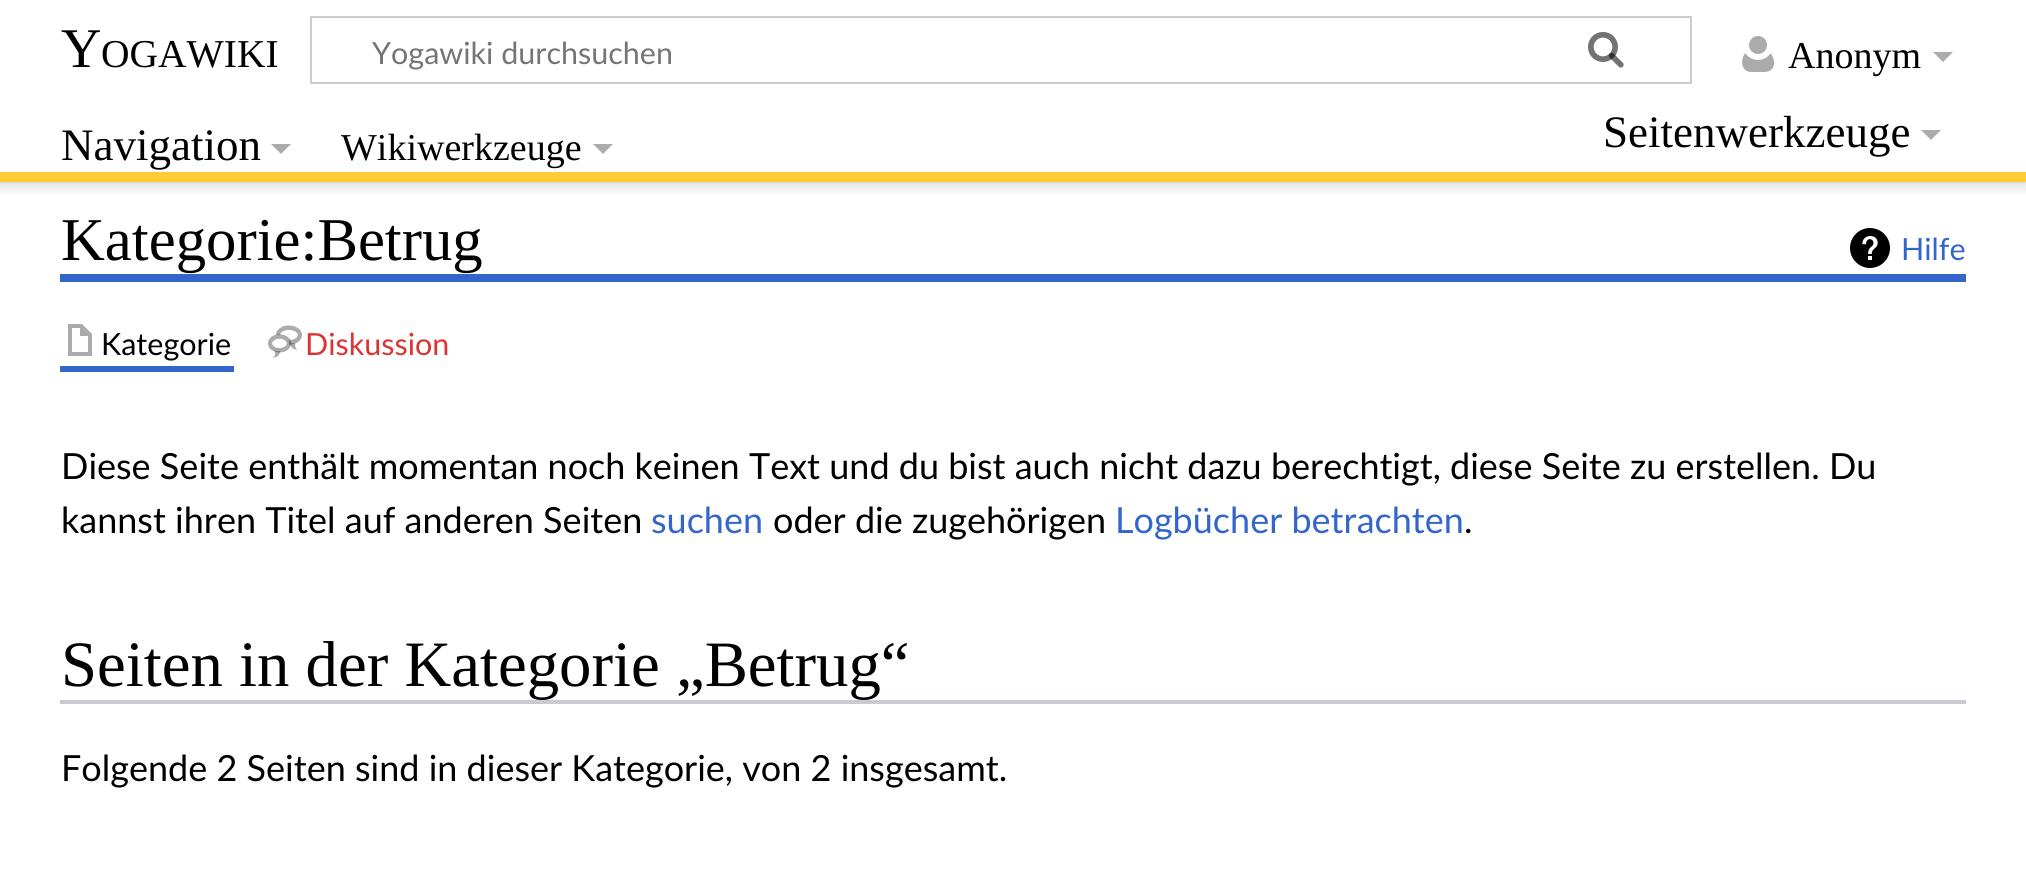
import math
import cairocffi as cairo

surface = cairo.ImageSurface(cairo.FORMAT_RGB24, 2026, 885)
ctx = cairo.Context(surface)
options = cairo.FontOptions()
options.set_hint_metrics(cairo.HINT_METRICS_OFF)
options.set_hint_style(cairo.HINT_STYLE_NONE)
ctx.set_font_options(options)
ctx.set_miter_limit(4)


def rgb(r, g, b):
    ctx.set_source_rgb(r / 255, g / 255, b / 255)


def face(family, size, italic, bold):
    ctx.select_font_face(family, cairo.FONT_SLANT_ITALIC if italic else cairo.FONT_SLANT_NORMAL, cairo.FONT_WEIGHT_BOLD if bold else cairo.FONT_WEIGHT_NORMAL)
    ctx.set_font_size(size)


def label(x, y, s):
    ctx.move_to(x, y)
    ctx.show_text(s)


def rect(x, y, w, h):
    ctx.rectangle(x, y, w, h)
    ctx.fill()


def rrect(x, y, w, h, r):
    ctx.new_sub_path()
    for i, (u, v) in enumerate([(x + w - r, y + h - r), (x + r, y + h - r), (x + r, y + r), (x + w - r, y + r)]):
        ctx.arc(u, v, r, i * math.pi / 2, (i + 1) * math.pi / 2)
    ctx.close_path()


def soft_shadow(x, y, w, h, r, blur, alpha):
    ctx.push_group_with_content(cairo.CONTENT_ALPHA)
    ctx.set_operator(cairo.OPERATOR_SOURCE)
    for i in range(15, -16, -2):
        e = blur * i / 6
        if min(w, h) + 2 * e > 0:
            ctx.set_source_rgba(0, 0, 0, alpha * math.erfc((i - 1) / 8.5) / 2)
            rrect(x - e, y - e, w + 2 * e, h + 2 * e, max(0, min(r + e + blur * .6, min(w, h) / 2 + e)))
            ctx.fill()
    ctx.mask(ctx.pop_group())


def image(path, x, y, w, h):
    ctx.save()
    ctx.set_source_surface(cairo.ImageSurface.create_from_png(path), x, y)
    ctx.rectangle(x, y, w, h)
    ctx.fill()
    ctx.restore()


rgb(255, 255, 255)
ctx.paint()
face('Liberation Serif', 56, 0, 0)
rgb(0, 0, 0)
label(61, 67, 'Y')
face('Liberation Serif', 39.5, 0, 0)
label(101, 67, 'OGAWIKI')
ctx.rectangle(311, 17, 1380, 66)
rgb(200, 204, 209)
ctx.stroke()
image('image0.png', 1588, 32, 36, 36)
face('Lato', 30.5, 0, 0)
rgb(117, 117, 117)
label(372, 64, 'Yogawiki durchsuchen')
image('image1.png', 1588, 32, 36, 36)
image('image2.png', 1742, 36, 32, 36)
face('Liberation Serif', 38, 0, 0)
rgb(0, 0, 0)
label(1788, 68, 'Anonym')
rgb(171, 171, 171)
ctx.new_path()
ctx.move_to(1953, 52)
ctx.line_to(1943, 62)
ctx.line_to(1933, 52)
ctx.close_path()
ctx.fill()
rgb(0, 0, 0)
soft_shadow(0, 92, 2026, 90, 0, 2, 0.2)
soft_shadow(-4, 94, 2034, 98, 0, 3, 0.07)
rgb(255, 255, 255)
rect(0, 88, 2026, 84)
rgb(255, 204, 50)
rect(0, 172, 2026, 10)
face('Liberation Serif', 45, 0, 0)
rgb(0, 0, 0)
label(61, 160, 'Navigation')
rgb(171, 171, 171)
ctx.new_path()
ctx.move_to(291, 144)
ctx.line_to(281, 154)
ctx.line_to(271, 144)
ctx.close_path()
ctx.fill()
face('Liberation Serif', 38, 0, 0)
rgb(0, 0, 0)
label(341, 160, 'Wikiwerkzeuge')
rgb(171, 171, 171)
ctx.new_path()
ctx.move_to(613, 144)
ctx.line_to(603, 154)
ctx.line_to(593, 144)
ctx.close_path()
ctx.fill()
face('Liberation Serif', 45, 0, 0)
rgb(0, 0, 0)
label(1603, 147, 'Seitenwerkzeuge')
rgb(171, 171, 171)
ctx.new_path()
ctx.move_to(1941, 130)
ctx.line_to(1931, 140)
ctx.line_to(1921, 130)
ctx.close_path()
ctx.fill()
rgb(51, 102, 204)
rect(60, 274, 1906, 8)
face('Liberation Serif', 60.75, 0, 0)
rgb(0, 0, 0)
label(61, 260, 'Kategorie:Betrug')
image('image3.png', 1850, 228, 40, 40)
face('Lato', 30.5, 0, 0)
rgb(51, 102, 204)
label(1901, 260, 'Hilfe')
rect(60, 366, 174, 6)
rgb(171, 171, 171)
ctx.new_path()
ctx.move_to(68, 324)
ctx.line_to(68, 356)
ctx.line_to(92, 356)
ctx.line_to(92, 334)
ctx.line_to(82, 324)
ctx.close_path()
ctx.move_to(72, 328)
ctx.line_to(80, 328)
ctx.line_to(80, 336)
ctx.line_to(88, 336)
ctx.line_to(88, 352)
ctx.line_to(72, 352)
ctx.close_path()
ctx.fill()
rgb(0, 0, 0)
label(101, 355, 'Kategorie')
image('image4.png', 268, 325, 34, 33)
rgb(221, 51, 51)
label(305, 355, 'Diskussion')
face('Lato', 36, 0, 0)
rgb(0, 0, 0)
label(61, 479, 'Diese Seite enthält momentan noch keinen Text und du bist auch nicht dazu berechtigt, diese Seite zu erstellen. Du')
label(61, 533, 'kannst ihren Titel auf anderen Seiten')
rgb(51, 102, 204)
label(651, 533, 'suchen')
rgb(0, 0, 0)
label(773, 533, 'oder die zugehörigen')
rgb(51, 102, 204)
label(1115, 533, 'Logbücher betrachten')
rgb(0, 0, 0)
label(1464, 533, '.')
rgb(200, 204, 209)
rect(60, 700, 1906, 4)
face('Liberation Serif', 64.75, 0, 0)
rgb(0, 0, 0)
label(61, 686, 'Seiten in der Kategorie „Betrug“')
face('Lato', 36, 0, 0)
label(61, 781, 'Folgende 2 Seiten sind in dieser Kategorie, von 2 insgesamt.')
surface.write_to_png('render.png')
